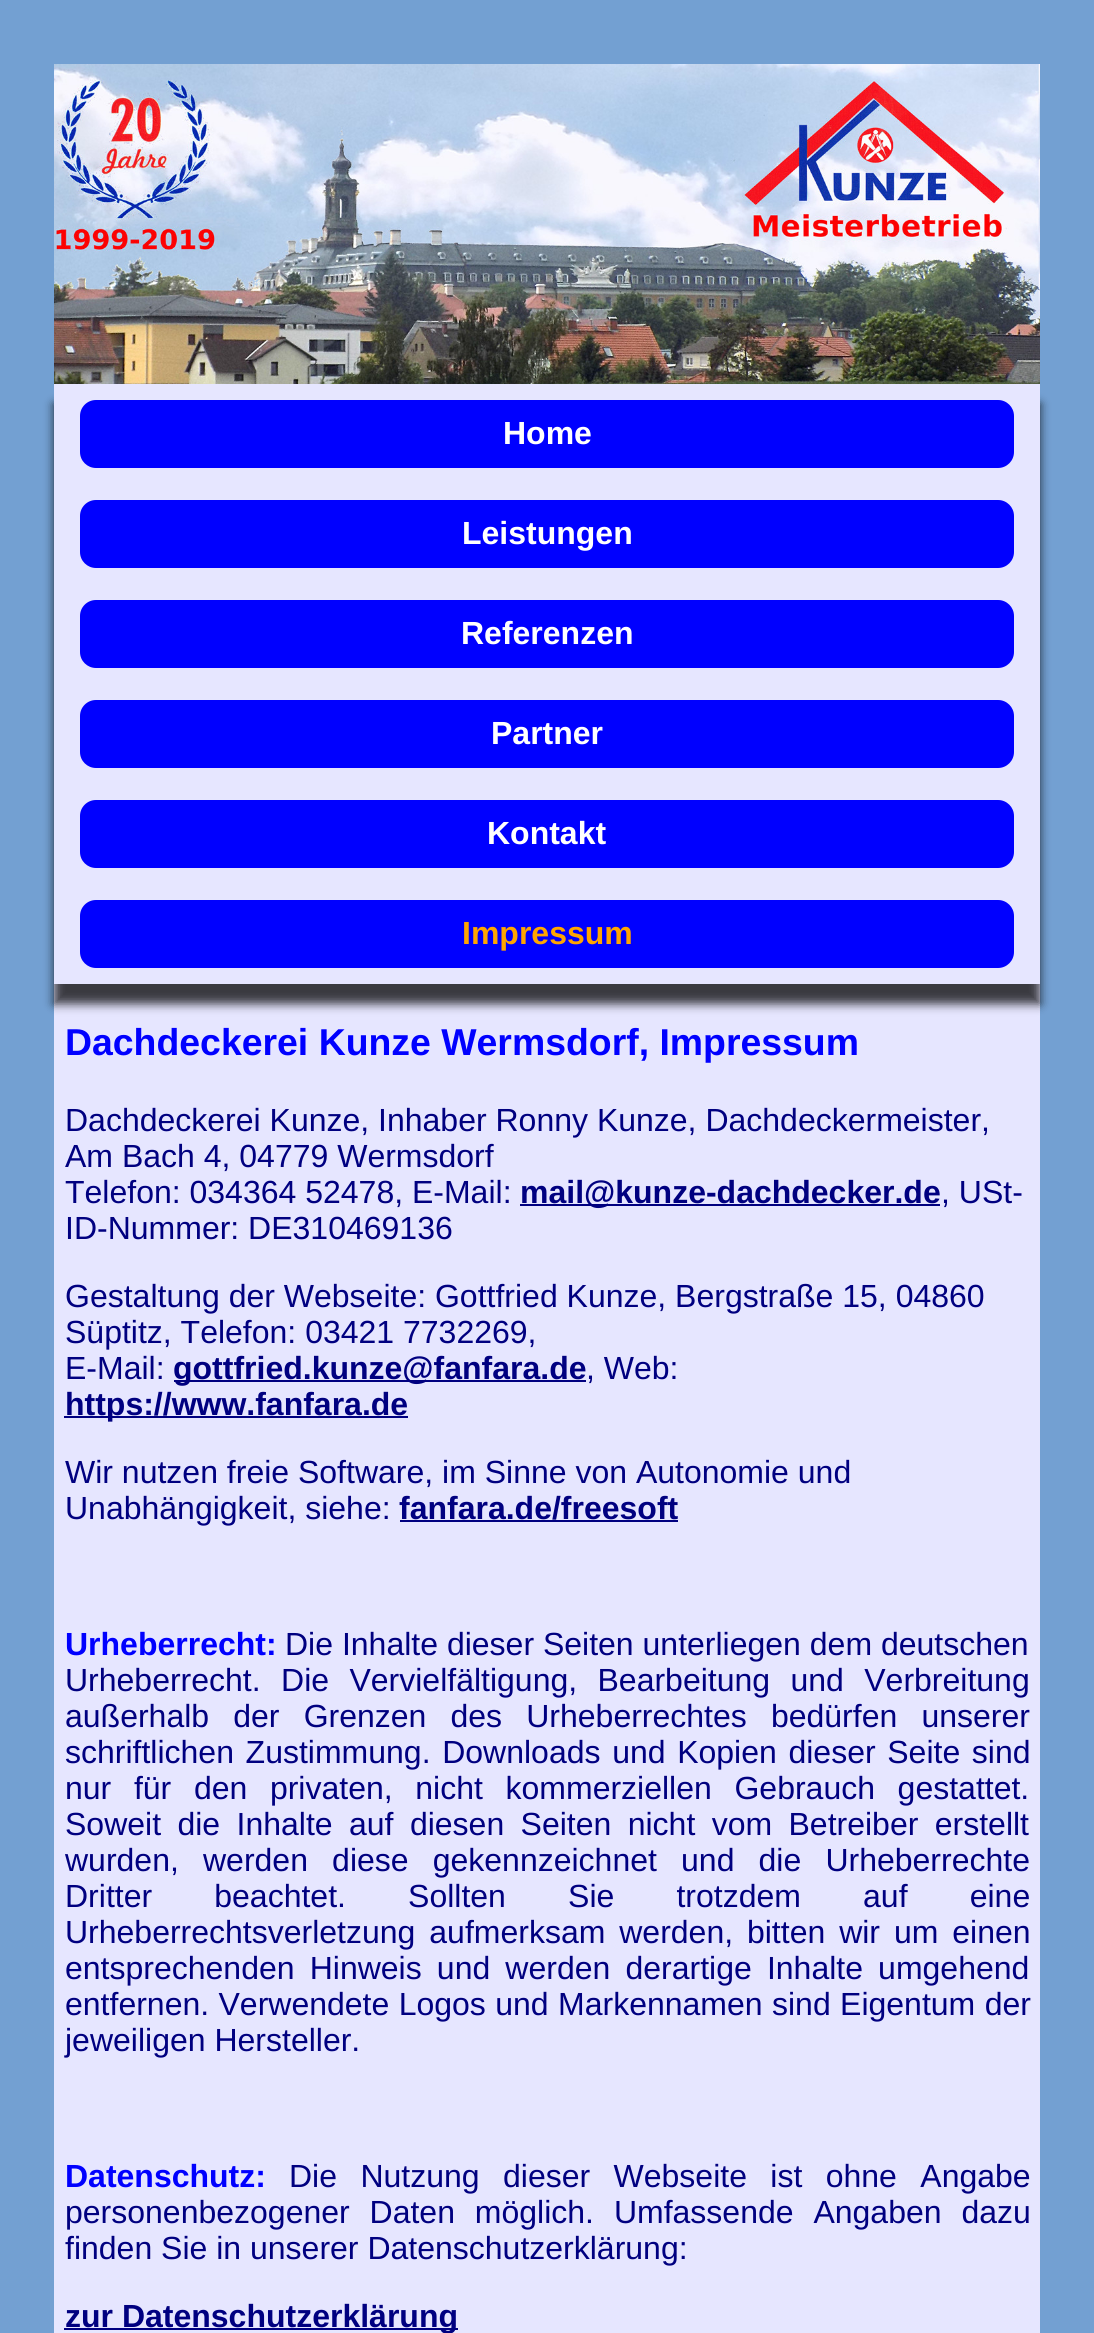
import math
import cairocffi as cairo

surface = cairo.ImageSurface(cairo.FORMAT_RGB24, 1094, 2333)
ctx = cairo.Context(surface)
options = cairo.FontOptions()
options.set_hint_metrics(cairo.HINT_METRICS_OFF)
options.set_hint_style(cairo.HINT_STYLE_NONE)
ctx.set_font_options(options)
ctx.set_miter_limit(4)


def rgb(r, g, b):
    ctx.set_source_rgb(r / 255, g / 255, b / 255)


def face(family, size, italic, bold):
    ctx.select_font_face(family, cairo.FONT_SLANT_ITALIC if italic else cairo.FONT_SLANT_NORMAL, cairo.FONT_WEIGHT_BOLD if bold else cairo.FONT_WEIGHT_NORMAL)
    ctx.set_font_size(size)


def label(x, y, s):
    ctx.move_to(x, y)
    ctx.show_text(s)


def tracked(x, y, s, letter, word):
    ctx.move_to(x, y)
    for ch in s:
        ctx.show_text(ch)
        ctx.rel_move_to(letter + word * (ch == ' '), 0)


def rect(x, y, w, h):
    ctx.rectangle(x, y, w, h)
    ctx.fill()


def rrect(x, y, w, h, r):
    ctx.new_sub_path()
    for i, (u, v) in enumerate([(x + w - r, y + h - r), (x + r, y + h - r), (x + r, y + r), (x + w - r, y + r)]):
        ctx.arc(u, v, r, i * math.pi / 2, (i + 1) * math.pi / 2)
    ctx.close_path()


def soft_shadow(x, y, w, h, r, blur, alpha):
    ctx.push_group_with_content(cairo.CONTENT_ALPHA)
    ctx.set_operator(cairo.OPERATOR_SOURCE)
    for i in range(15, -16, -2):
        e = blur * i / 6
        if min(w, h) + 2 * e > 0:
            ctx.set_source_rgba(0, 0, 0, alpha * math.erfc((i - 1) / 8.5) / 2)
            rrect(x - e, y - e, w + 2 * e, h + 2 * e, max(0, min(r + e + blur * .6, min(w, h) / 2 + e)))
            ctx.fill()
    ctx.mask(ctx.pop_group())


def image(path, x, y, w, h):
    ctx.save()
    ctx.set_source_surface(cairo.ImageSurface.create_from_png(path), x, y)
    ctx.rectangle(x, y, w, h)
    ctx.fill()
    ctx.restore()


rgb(115, 160, 210)
ctx.paint()
rgb(230, 230, 255)
rect(54, 384, 986, 1949)
image('image0.png', 54, 64, 986, 320)
ctx.save()
ctx.set_fill_rule(cairo.FILL_RULE_EVEN_ODD)
ctx.new_path()
ctx.move_to(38, 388)
ctx.line_to(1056, 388)
ctx.line_to(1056, 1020)
ctx.line_to(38, 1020)
ctx.close_path()
ctx.move_to(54, 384)
ctx.line_to(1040, 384)
ctx.line_to(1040, 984)
ctx.line_to(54, 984)
ctx.close_path()
ctx.clip()
rgb(0, 0, 0)
soft_shadow(54, 404, 986, 600, 0, 5, 0.75)
ctx.restore()
rgb(0, 0, 255)
rrect(80, 400, 934, 68, 16)
ctx.fill()
face('Liberation Sans', 32, 0, 1)
rgb(255, 255, 255)
label(503, 444, 'Home')
rgb(0, 0, 255)
rrect(80, 500, 934, 68, 16)
ctx.fill()
rgb(255, 255, 255)
label(462, 544, 'Leistungen')
rgb(0, 0, 255)
rrect(80, 600, 934, 68, 16)
ctx.fill()
rgb(255, 255, 255)
label(461, 644, 'Referenzen')
rgb(0, 0, 255)
rrect(80, 700, 934, 68, 16)
ctx.fill()
rgb(255, 255, 255)
label(491, 744, 'Partner')
rgb(0, 0, 255)
rrect(80, 800, 934, 68, 16)
ctx.fill()
rgb(255, 255, 255)
label(487, 844, 'Kontakt')
rgb(0, 0, 255)
rrect(80, 900, 934, 68, 16)
ctx.fill()
rgb(255, 165, 0)
label(462, 944, 'Impressum')
face('Liberation Sans', 37.4, 0, 1)
rgb(0, 0, 255)
label(65, 1055, 'Dachdeckerei Kunze Wermsdorf, Impressum')
face('Liberation Sans', 32, 0, 0)
rgb(0, 0, 128)
label(65, 1131, 'Dachdeckerei Kunze, Inhaber Ronny Kunze, Dachdeckermeister,')
label(65, 1167, 'Am Bach 4, 04779 Wermsdorf')
label(65, 1203, 'Telefon: 034364 52478, E-Mail:')
rect(520, 1204, 420, 2)
face('Liberation Sans', 32, 0, 1)
label(520, 1203, 'mail@kunze-dachdecker.de')
face('Liberation Sans', 32, 0, 0)
label(941, 1203, ', USt-')
label(65, 1239, 'ID-Nummer: DE310469136')
label(65, 1307, 'Gestaltung der Webseite: Gottfried Kunze, Bergstraße 15, 04860')
label(65, 1343, 'Süptitz, Telefon: 03421 7732269,')
label(65, 1379, 'E-Mail:')
rect(174, 1380, 412, 2)
face('Liberation Sans', 32, 0, 1)
label(173, 1379, 'gottfried.kunze@fanfara.de')
face('Liberation Sans', 32, 0, 0)
label(586, 1379, ', Web:')
rect(64, 1416, 344, 2)
face('Liberation Sans', 32, 0, 1)
label(65, 1415, 'https://www.fanfara.de')
face('Liberation Sans', 32, 0, 0)
label(65, 1483, 'Wir nutzen freie Software, im Sinne von Autonomie und')
label(65, 1519, 'Unabhängigkeit, siehe:')
face('Liberation Sans', 32, 0, 1)
label(399, 1519, 'fanfara.de/freesoft')
rect(400, 1520, 278, 2)
rgb(0, 0, 255)
label(65, 1655, 'Urheberrecht:')
face('Liberation Sans', 32, 0, 0)
rgb(0, 0, 128)
label(285, 1655, 'Die Inhalte dieser Seiten unterliegen dem deutschen')
tracked(65, 1691, 'Urheberrecht. Die Vervielfältigung, Bearbeitung und Verbreitung', 0, 11.5)
tracked(65, 1727, 'außerhalb der Grenzen des Urheberrechtes bedürfen unserer', 0, 15.25)
tracked(65, 1763, 'schriftlichen Zustimmung. Downloads und Kopien dieser Seite sind', 0, 2.75)
tracked(65, 1799, 'nur für den privaten, nicht kommerziellen Gebrauch gestattet.', 0, 13.75)
tracked(65, 1835, 'Soweit die Inhalte auf diesen Seiten nicht vom Betreiber erstellt', 0, 7.5)
tracked(65, 1871, 'wurden, werden diese gekennzeichnet und die Urheberrechte', 0, 15.25)
tracked(65, 1907, 'Dritter beachtet. Sollten Sie trotzdem auf eine', 0, 53.25)
tracked(65, 1943, 'Urheberrechtsverletzung aufmerksam werden, bitten wir um einen', 0, 5)
tracked(65, 1979, 'entsprechenden Hinweis und werden derartige Inhalte umgehend', 0, 6.25)
tracked(65, 2015, 'entfernen. Verwendete Logos und Markennamen sind Eigentum der', 0, 0.5)
label(65, 2051, 'jeweiligen Hersteller.')
face('Liberation Sans', 32, 0, 1)
rgb(0, 0, 255)
label(65, 2187, 'Datenschutz:')
face('Liberation Sans', 32, 0, 0)
rgb(0, 0, 128)
tracked(289, 2187, 'Die Nutzung dieser Webseite ist ohne Angabe', 0, 14.5)
tracked(65, 2223, 'personenbezogener Daten möglich. Umfassende Angaben dazu', 0, 11)
label(65, 2259, 'finden Sie in unserer Datenschutzerklärung:')
rect(64, 2328, 394, 2)
face('Liberation Sans', 32, 0, 1)
label(65, 2327, 'zur Datenschutzerklärung')
surface.write_to_png('render.png')
